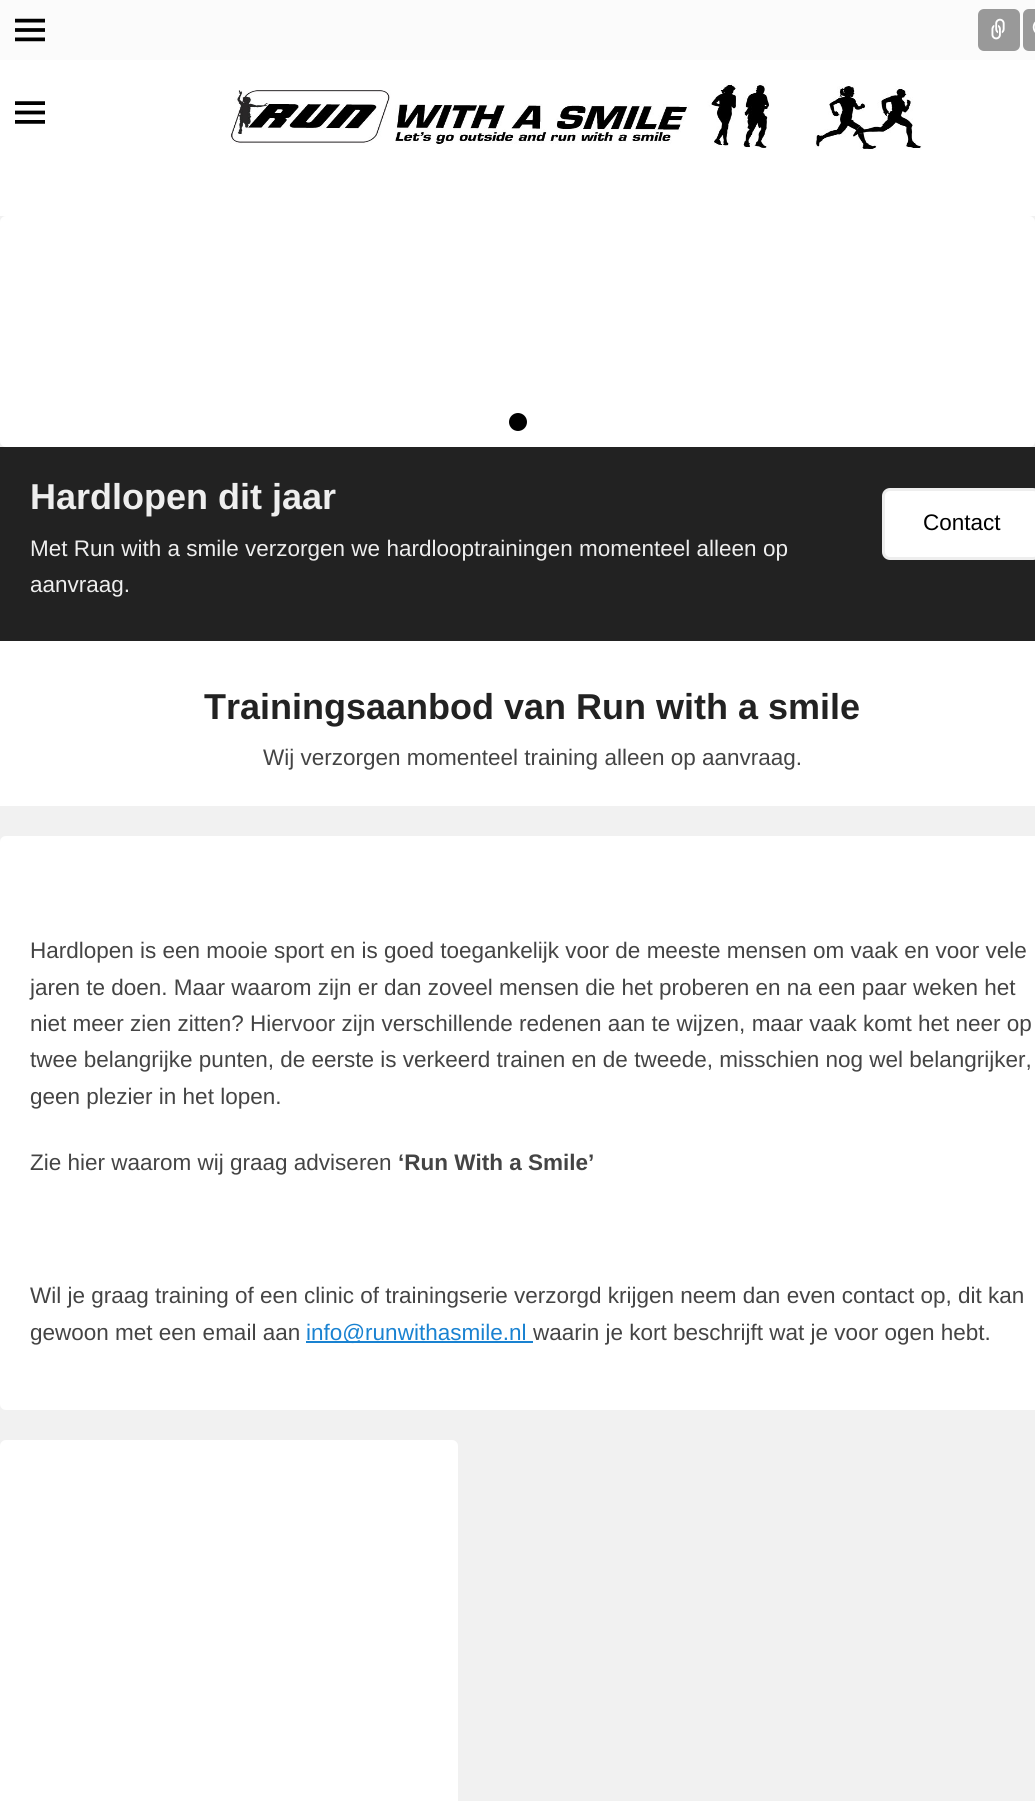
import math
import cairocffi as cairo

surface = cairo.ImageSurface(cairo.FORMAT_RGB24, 1035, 1801)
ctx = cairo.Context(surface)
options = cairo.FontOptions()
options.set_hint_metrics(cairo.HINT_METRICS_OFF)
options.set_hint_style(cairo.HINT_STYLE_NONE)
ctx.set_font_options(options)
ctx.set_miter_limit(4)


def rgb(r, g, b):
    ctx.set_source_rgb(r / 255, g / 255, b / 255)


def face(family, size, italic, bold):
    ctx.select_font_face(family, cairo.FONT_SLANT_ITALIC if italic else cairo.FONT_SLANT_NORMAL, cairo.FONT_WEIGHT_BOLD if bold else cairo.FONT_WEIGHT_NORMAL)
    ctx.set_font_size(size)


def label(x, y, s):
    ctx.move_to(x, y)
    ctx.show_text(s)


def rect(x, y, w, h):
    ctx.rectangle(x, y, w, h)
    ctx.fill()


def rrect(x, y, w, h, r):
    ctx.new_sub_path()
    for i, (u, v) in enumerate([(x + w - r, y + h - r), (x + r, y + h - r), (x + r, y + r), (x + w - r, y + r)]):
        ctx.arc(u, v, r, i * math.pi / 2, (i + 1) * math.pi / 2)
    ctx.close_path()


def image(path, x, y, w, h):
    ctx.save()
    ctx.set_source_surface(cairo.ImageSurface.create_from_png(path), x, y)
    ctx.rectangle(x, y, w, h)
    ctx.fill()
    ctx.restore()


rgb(241, 241, 241)
ctx.paint()
rgb(251, 251, 251)
rect(0, 0, 1035, 60)
image('image0.png', 15, 18, 30, 24)
rgb(153, 153, 153)
rrect(978, 9, 42, 42, 6)
ctx.fill()
image('image1.png', 991, 18, 14, 22)
ctx.new_path()
ctx.move_to(1029, 9)
ctx.line_to(1035, 9)
ctx.line_to(1035, 51)
ctx.line_to(1029, 51)
ctx.curve_to(1025.5, 51, 1023, 48.5, 1023, 45)
ctx.line_to(1023, 15)
ctx.curve_to(1023, 11.5, 1025.5, 9, 1029, 9)
ctx.close_path()
ctx.fill()
image('image2.png', 1032, 21, 3, 12)
rgb(255, 255, 255)
rect(0, 60, 1035, 156)
image('image3.png', 15, 101, 30, 23)
image('image4.png', 230, 83, 692, 67)
rrect(0, 216, 1035, 231, 6)
ctx.fill()
rgb(0, 0, 0)
ctx.arc(518, 422, 9, 0, 2 * math.pi)
ctx.fill()
rgb(34, 34, 34)
rect(0, 447, 1035, 194)
face('Liberation Sans', 36, 0, 1)
rgb(238, 238, 238)
label(30, 509, 'Hardlopen dit jaar')
face('Liberation Sans', 22.5, 0, 0)
label(30, 556, 'Met Run with a smile verzorgen we hardlooptrainingen momenteel alleen op')
label(30, 592, 'aanvraag.')
rgb(255, 255, 255)
rrect(883.5, 489.5, 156, 69, 6.5)
ctx.fill_preserve()
rgb(238, 238, 238)
ctx.set_line_width(3)
ctx.stroke()
rgb(0, 0, 0)
label(923, 530, 'Contact')
rgb(255, 255, 255)
rect(0, 641, 1035, 165)
face('Liberation Sans', 36, 0, 1)
rgb(34, 34, 34)
label(204, 719, 'Trainingsaanbod van Run with a smile')
face('Liberation Sans', 22.5, 0, 0)
rgb(68, 68, 68)
label(263, 765, 'Wij verzorgen momenteel training alleen op aanvraag.')
rgb(255, 255, 255)
ctx.new_path()
ctx.move_to(6, 836)
ctx.line_to(1035, 836)
ctx.line_to(1035, 1410)
ctx.line_to(6, 1410)
ctx.curve_to(2.5, 1410, 0, 1407.5, 0, 1404)
ctx.line_to(0, 842)
ctx.curve_to(0, 838.5, 2.5, 836, 6, 836)
ctx.close_path()
ctx.fill()
rgb(68, 68, 68)
label(30, 958, 'Hardlopen is een mooie sport en is goed toegankelijk voor de meeste mensen om vaak en voor vele')
label(30, 995, 'jaren te doen. Maar waarom zijn er dan zoveel mensen die het proberen en na een paar weken het')
label(30, 1031, 'niet meer zien zitten? Hiervoor zijn verschillende redenen aan te wijzen, maar vaak komt het neer op')
label(30, 1067, 'twee belangrijke punten, de eerste is verkeerd trainen en de tweede, misschien nog wel belangrijker,')
label(30, 1104, 'geen plezier in het lopen.')
label(30, 1170, 'Zie hier waarom wij graag adviseren')
face('Liberation Sans', 22.5, 0, 1)
label(398, 1170, '‘Run With a Smile’')
face('Liberation Sans', 22.5, 0, 0)
label(30, 1303, 'Wil je graag training of een clinic of trainingserie verzorgd krijgen neem dan even contact op, dit kan')
label(30, 1340, 'gewoon met een email aan')
rgb(25, 130, 209)
rect(306, 1341, 227, 2)
label(306, 1340, 'info@runwithasmile.nl')
rgb(68, 68, 68)
label(533, 1340, 'waarin je kort beschrijft wat je voor ogen hebt.')
rgb(255, 255, 255)
rrect(0, 1440, 458, 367, 6)
ctx.fill()
surface.write_to_png('render.png')
